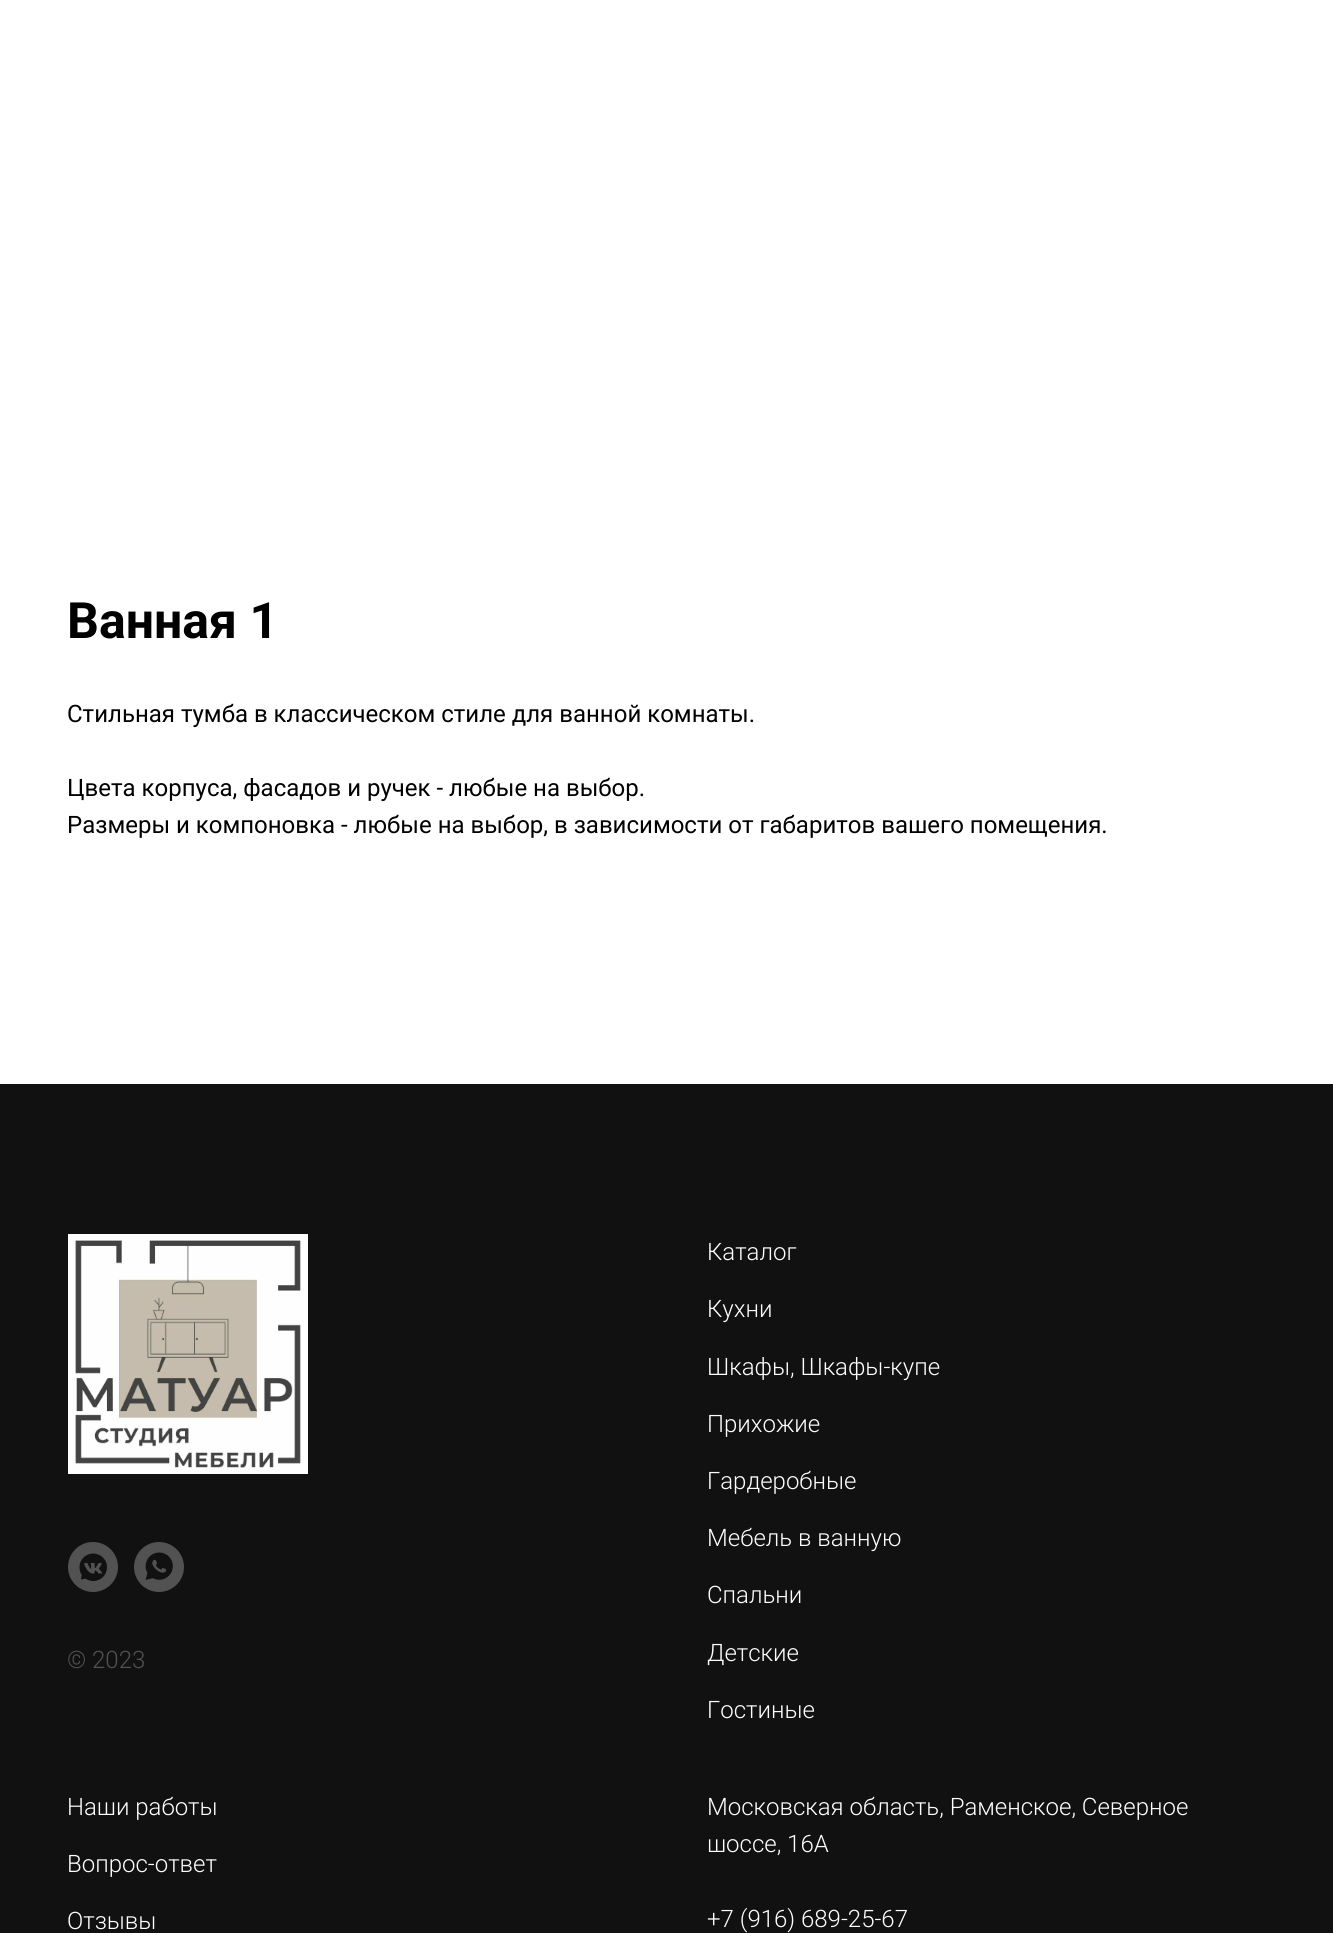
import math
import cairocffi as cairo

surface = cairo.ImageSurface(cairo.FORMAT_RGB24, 1333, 1933)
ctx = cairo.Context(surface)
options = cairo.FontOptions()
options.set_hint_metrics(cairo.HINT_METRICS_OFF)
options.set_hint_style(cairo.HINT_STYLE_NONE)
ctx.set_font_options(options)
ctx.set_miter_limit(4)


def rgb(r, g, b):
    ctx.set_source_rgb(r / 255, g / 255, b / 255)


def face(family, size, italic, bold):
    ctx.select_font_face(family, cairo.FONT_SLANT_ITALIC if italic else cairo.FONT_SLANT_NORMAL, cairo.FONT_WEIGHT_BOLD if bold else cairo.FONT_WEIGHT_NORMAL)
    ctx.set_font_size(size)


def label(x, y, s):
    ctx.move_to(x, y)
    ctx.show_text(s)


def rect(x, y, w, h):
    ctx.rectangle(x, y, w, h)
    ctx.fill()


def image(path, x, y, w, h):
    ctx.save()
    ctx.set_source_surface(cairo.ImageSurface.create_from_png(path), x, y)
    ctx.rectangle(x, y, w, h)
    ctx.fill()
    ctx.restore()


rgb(255, 255, 255)
ctx.paint()
face('Roboto', 50, 0, 1)
rgb(0, 0, 0)
label(67, 638, 'Ванная 1')
face('Roboto', 24, 0, 0)
label(67, 722, 'Стильная тумба в классическом стиле для ванной комнаты.')
label(67, 796, 'Цвета корпуса, фасадов и ручек - любые на выбор.')
label(67, 833, 'Размеры и компоновка - любые на выбор, в зависимости от габаритов вашего помещения.')
rgb(17, 17, 17)
rect(0, 1084, 1333, 849)
image('image0.png', 68, 1234, 240, 240)
image('image1.png', 68, 1542, 50, 50)
image('image2.png', 134, 1542, 50, 50)
face('Roboto Light', 24, 0, 0)
rgb(82, 82, 82)
label(67, 1668, '© 2023')
rgb(255, 255, 255)
label(707, 1260, 'Каталог')
label(707, 1317, 'Кухни')
label(707, 1375, 'Шкафы, Шкафы-купе')
label(707, 1432, 'Прихожие')
label(707, 1489, 'Гардеробные')
label(707, 1546, 'Мебель в ванную')
label(707, 1603, 'Спальни')
label(707, 1661, 'Детские')
label(707, 1718, 'Гостиные')
label(67, 1815, 'Наши работы')
label(67, 1872, 'Вопрос-ответ')
label(67, 1929, 'Отзывы')
label(707, 1815, 'Московская область, Раменское, Северное')
label(707, 1852, 'шоссе, 16А')
label(707, 1927, '+7 (916) 689-25-67')
surface.write_to_png('render.png')
